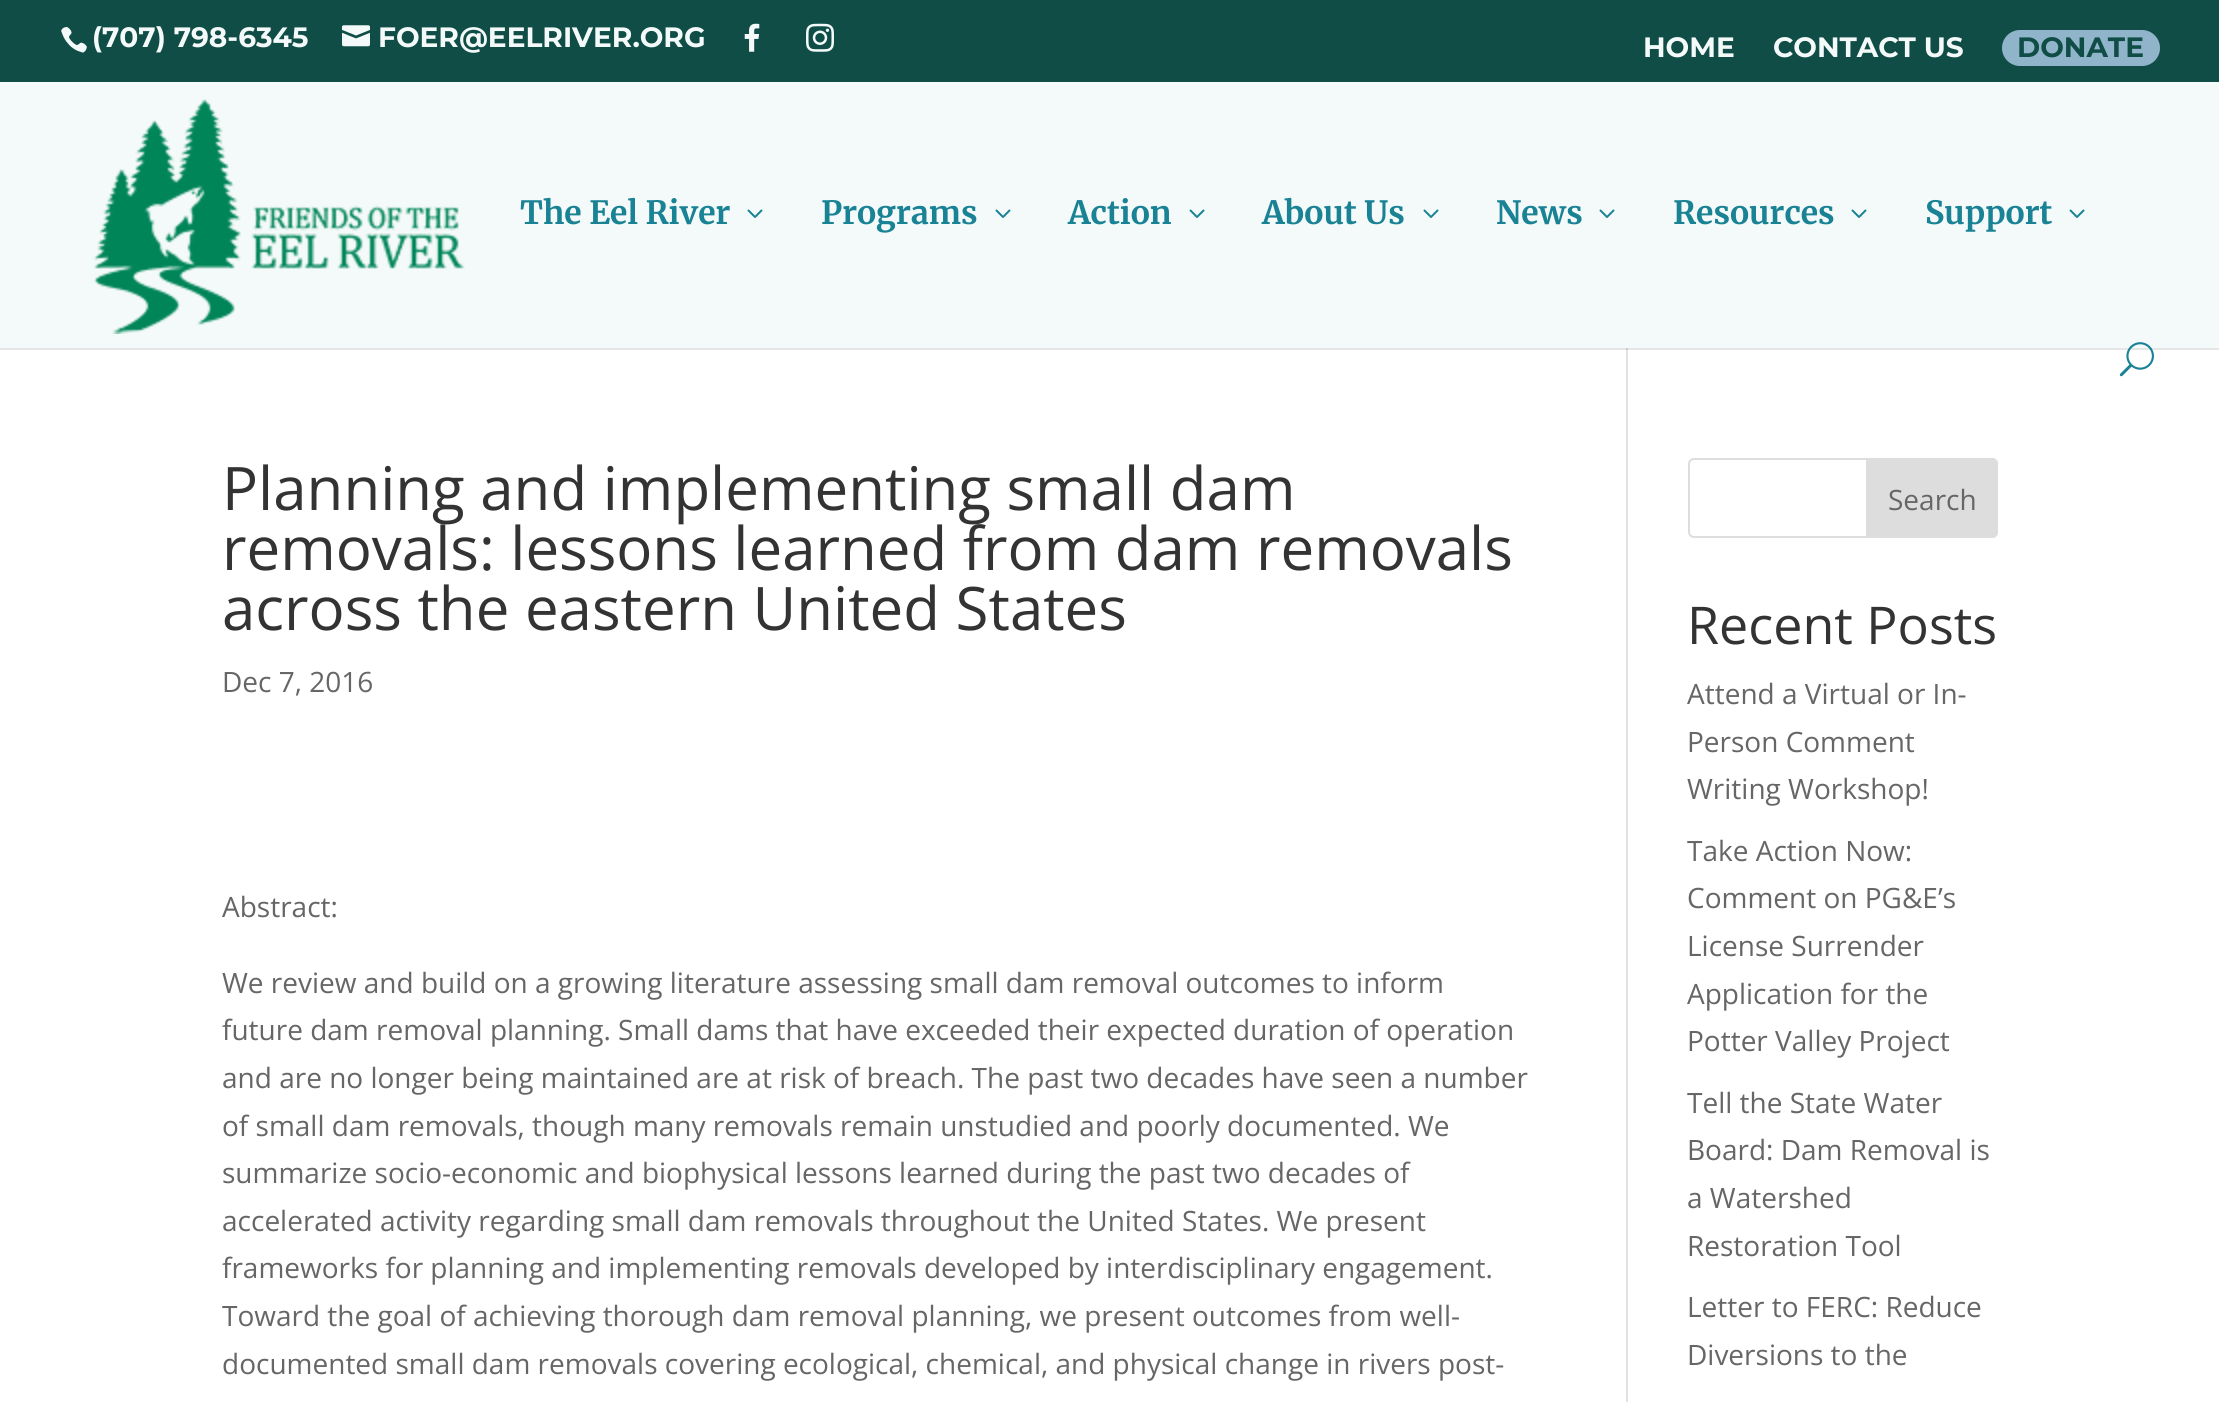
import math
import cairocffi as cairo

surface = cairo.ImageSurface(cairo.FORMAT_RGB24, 2219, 1402)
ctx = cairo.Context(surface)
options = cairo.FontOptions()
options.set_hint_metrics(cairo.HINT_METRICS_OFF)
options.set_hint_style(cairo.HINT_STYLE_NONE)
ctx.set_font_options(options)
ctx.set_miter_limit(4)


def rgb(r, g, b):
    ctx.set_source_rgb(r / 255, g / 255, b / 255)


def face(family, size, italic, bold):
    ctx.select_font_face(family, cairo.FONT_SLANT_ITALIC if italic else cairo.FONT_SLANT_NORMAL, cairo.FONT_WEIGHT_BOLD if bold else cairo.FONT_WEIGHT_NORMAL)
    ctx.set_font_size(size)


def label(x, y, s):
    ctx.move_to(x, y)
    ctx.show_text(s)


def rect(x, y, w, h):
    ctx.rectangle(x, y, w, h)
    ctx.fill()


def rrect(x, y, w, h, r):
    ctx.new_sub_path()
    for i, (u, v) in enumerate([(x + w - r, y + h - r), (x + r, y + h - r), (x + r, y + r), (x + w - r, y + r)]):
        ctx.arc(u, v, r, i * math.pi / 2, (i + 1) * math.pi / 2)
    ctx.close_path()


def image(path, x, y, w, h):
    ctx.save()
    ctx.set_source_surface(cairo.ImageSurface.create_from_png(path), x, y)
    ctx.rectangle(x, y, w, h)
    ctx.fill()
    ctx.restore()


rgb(255, 255, 255)
ctx.paint()
rgb(230, 230, 230)
rect(0, 348, 2219, 2)
rgb(15, 77, 70)
rect(0, 0, 2219, 82)
image('image0.png', 61, 26, 26, 27)
face('Montserrat', 28, 0, 1)
rgb(244, 250, 249)
label(92, 47, '(707) 798-6345')
image('image1.png', 342, 25, 28, 22)
label(378, 47, 'FOER@EELRIVER.ORG')
image('image2.png', 744, 23, 16, 29)
image('image3.png', 806, 23, 28, 29)
label(1643, 57, 'HOME')
label(1773, 57, 'CONTACT US')
rgb(144, 180, 201)
rrect(2002, 30, 158, 36, 18)
ctx.fill()
rgb(15, 77, 70)
label(2017, 57, 'DONATE')
rgb(226, 226, 226)
rect(1626, 342, 2, 1060)
rgb(244, 250, 249)
rect(0, 82, 2219, 266)
image('image4.png', 93, 99, 372, 235)
face('Merriweather', 32, 0, 1)
rgb(25, 130, 149)
label(520, 224, 'The Eel River')
image('image5.png', 747, 209, 16, 9)
label(821, 224, 'Programs')
image('image5.png', 995, 209, 16, 9)
label(1068, 224, 'Action')
image('image5.png', 1189, 209, 16, 9)
label(1262, 224, 'About Us')
image('image5.png', 1423, 209, 16, 9)
label(1496, 224, 'News')
image('image5.png', 1599, 209, 16, 9)
label(1673, 224, 'Resources')
image('image5.png', 1851, 209, 16, 9)
label(1925, 224, 'Support')
image('image5.png', 2069, 209, 16, 9)
image('image6.png', 2119, 342, 35, 35)
rgb(203, 203, 203)
rect(1626, 348, 2, 2)
face('Open Sans', 60, 0, 0)
rgb(51, 51, 51)
label(222, 510, 'Planning and implementing small dam')
label(222, 570, 'removals: lessons learned from dam removals')
label(222, 630, 'across the eastern United States')
face('Open Sans', 28, 0, 0)
rgb(102, 102, 102)
label(222, 692, 'Dec 7, 2016')
label(222, 917, 'Abstract:')
label(222, 993, 'We review and build on a growing literature assessing small dam removal outcomes to inform')
label(222, 1040, 'future dam removal planning. Small dams that have exceeded their expected duration of operation')
label(222, 1088, 'and are no longer being maintained are at risk of breach. The past two decades have seen a number')
label(222, 1136, 'of small dam removals, though many removals remain unstudied and poorly documented. We')
label(222, 1183, 'summarize socio-economic and biophysical lessons learned during the past two decades of')
label(222, 1231, 'accelerated activity regarding small dam removals throughout the United States. We present')
label(222, 1278, 'frameworks for planning and implementing removals developed by interdisciplinary engagement.')
label(222, 1326, 'Toward the goal of achieving thorough dam removal planning, we present outcomes from well-')
label(222, 1374, 'documented small dam removals covering ecological, chemical, and physical change in rivers post-')
rrect(1689, 459, 308, 78, 5)
rgb(221, 221, 221)
ctx.stroke()
ctx.new_path()
ctx.move_to(1867, 459)
ctx.line_to(1992, 459)
ctx.curve_to(1995, 459, 1997, 461, 1997, 464)
ctx.line_to(1997, 532)
ctx.curve_to(1997, 535, 1995, 537, 1992, 537)
ctx.line_to(1867, 537)
ctx.close_path()
ctx.fill_preserve()
ctx.stroke()
rgb(102, 102, 102)
label(1888, 510, 'Search')
face('Open Sans', 52, 0, 0)
rgb(51, 51, 51)
label(1687, 644, 'Recent Posts')
face('Open Sans', 28, 0, 0)
rgb(102, 102, 102)
label(1687, 704, 'Attend a Virtual or In-')
label(1687, 752, 'Person Comment')
label(1687, 799, 'Writing Workshop!')
label(1687, 861, 'Take Action Now:')
label(1687, 908, 'Comment on PG&E’s')
label(1687, 956, 'License Surrender')
label(1687, 1004, 'Application for the')
label(1687, 1051, 'Potter Valley Project')
label(1687, 1113, 'Tell the State Water')
label(1687, 1160, 'Board: Dam Removal is')
label(1687, 1208, 'a Watershed')
label(1687, 1256, 'Restoration Tool')
label(1687, 1317, 'Letter to FERC: Reduce')
label(1687, 1365, 'Diversions to the')
surface.write_to_png('render.png')
